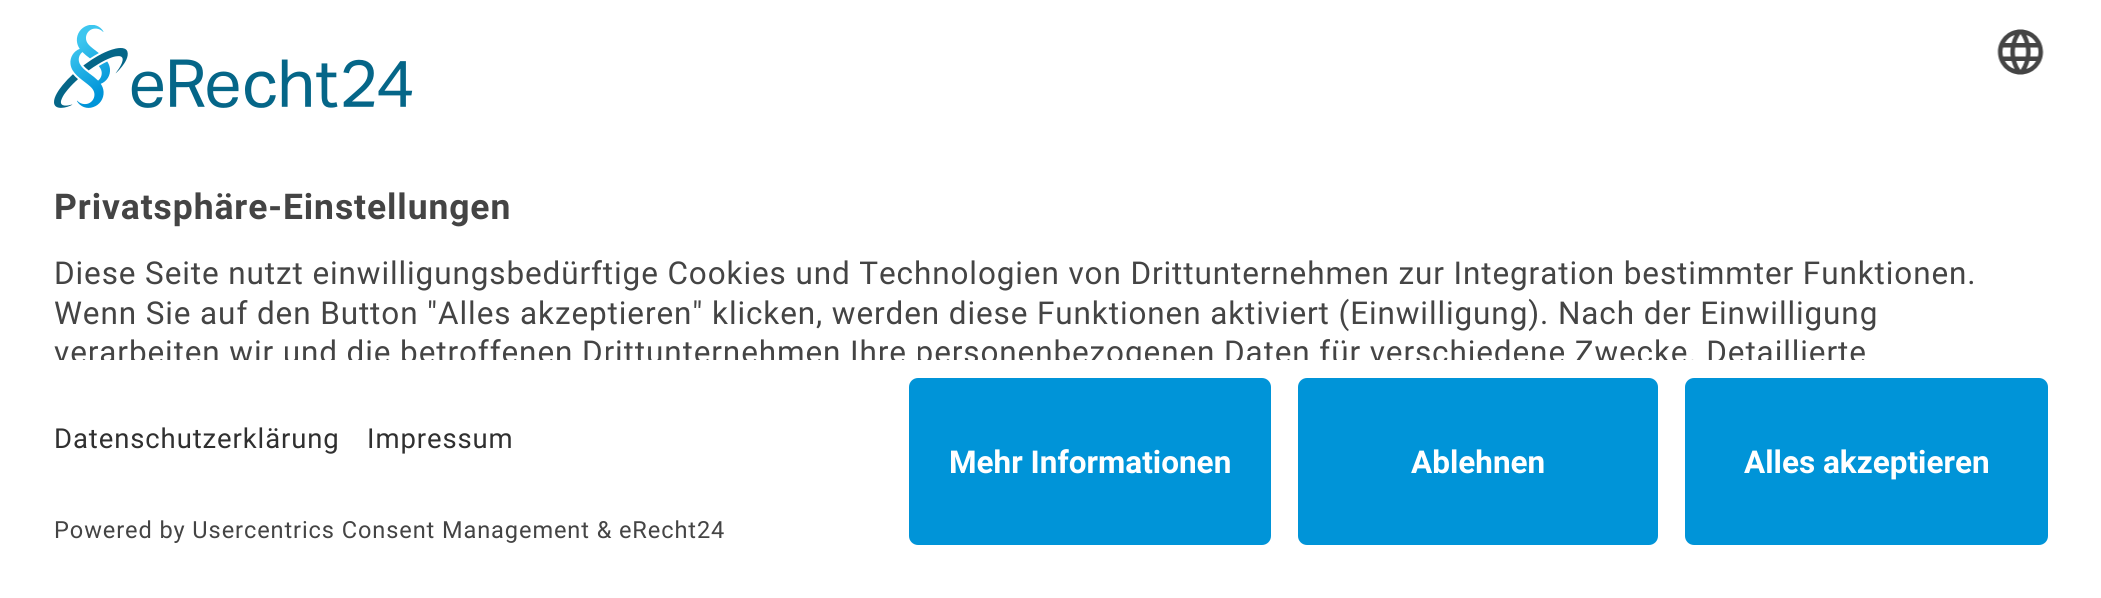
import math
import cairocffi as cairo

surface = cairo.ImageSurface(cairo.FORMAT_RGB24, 2101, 598)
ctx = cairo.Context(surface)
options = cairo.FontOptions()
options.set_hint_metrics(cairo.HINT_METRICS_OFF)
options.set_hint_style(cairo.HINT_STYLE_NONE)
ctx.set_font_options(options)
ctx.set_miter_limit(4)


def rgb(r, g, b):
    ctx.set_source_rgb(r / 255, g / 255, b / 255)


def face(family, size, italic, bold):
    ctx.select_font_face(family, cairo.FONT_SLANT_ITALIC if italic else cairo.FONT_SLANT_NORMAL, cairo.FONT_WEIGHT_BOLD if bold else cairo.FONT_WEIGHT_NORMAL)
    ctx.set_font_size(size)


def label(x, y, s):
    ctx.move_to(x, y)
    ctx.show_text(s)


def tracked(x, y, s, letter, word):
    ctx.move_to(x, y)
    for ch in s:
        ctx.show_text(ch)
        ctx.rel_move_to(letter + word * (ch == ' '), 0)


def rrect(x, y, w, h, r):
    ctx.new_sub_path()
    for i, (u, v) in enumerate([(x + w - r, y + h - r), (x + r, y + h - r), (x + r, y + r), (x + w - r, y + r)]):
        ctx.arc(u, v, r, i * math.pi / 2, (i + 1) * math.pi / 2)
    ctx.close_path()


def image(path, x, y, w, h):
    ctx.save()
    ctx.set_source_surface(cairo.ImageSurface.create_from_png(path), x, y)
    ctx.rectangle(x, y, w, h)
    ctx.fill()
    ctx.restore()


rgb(255, 255, 255)
ctx.paint()
image('image0.png', 54, 25, 359, 83)
image('image1.png', 1997, 29, 47, 46)
face('Roboto', 35.5, 0, 1)
rgb(68, 68, 68)
tracked(54, 219, 'Privatsphäre-Einstellungen', 0.9, 0)
face('Roboto', 31.5, 0, 0)
tracked(54, 284, 'Diese Seite nutzt einwilligungsbedürftige Cookies und Technologien von Drittunternehmen zur Integration bestimmter Funktionen.', 0.9, 0)
tracked(54, 324, 'Wenn Sie auf den Button "Alles akzeptieren" klicken, werden diese Funktionen aktiviert (Einwilligung). Nach der Einwilligung', 0.9, 0)
ctx.save()
ctx.new_path()
ctx.move_to(18, -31)
ctx.line_to(2084, -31)
ctx.curve_to(2094, -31, 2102, -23, 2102, -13)
ctx.line_to(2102, 360)
ctx.line_to(0, 360)
ctx.line_to(0, -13)
ctx.curve_to(0, -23, 8, -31, 18, -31)
ctx.close_path()
ctx.clip()
tracked(54, 363, 'verarbeiten wir und die betroffenen Drittunternehmen Ihre personenbezogenen Daten für verschiedene Zwecke. Detaillierte', 0.9, 0)
ctx.restore()
face('Roboto', 27.5, 0, 0)
rgb(48, 48, 48)
tracked(54, 448, 'Datenschutzerklärung', 0.9, 0)
tracked(367, 448, 'Impressum', 0.9, 0)
face('Roboto', 23.6, 0, 0)
rgb(68, 68, 68)
tracked(54, 538, 'Powered by Usercentrics Consent Management & eRecht24', 0.9, 0)
rgb(0, 148, 216)
rrect(909, 378, 362, 167, 9)
ctx.fill()
face('Roboto', 31.5, 0, 1)
rgb(255, 255, 255)
label(949, 473, 'Mehr Informationen')
rgb(0, 148, 216)
rrect(1298, 378, 360, 167, 9)
ctx.fill()
rgb(255, 255, 255)
label(1411, 473, 'Ablehnen')
rgb(0, 148, 216)
rrect(1685, 378, 363, 167, 9)
ctx.fill()
rgb(255, 255, 255)
label(1744, 473, 'Alles akzeptieren')
surface.write_to_png('render.png')
